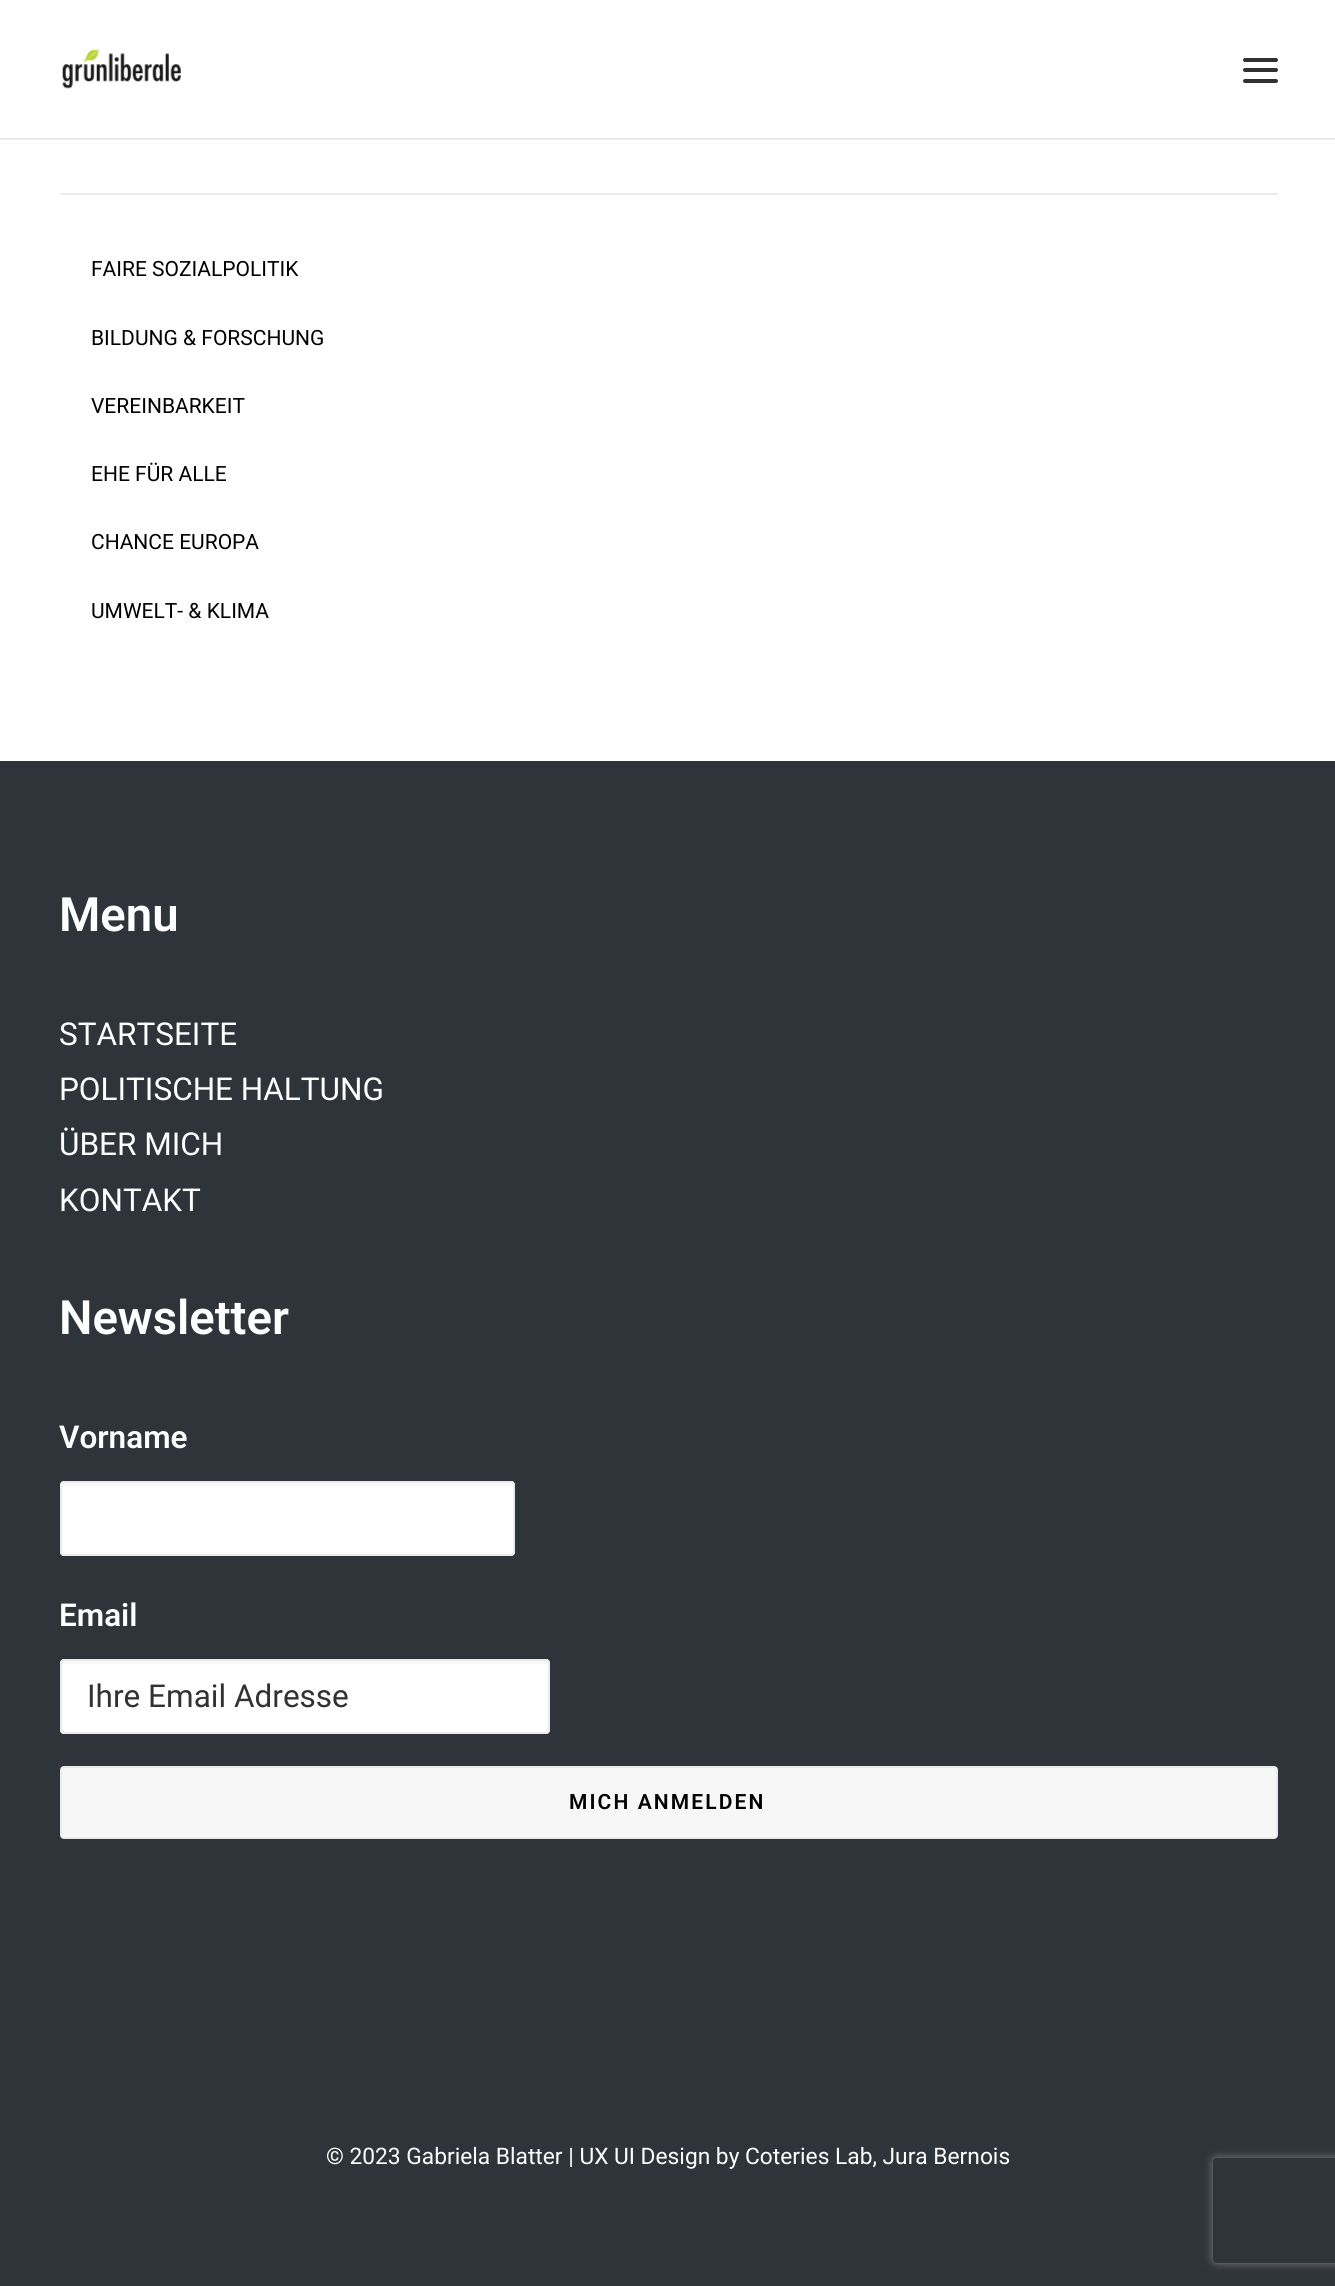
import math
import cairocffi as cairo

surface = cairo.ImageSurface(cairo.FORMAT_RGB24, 1335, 2286)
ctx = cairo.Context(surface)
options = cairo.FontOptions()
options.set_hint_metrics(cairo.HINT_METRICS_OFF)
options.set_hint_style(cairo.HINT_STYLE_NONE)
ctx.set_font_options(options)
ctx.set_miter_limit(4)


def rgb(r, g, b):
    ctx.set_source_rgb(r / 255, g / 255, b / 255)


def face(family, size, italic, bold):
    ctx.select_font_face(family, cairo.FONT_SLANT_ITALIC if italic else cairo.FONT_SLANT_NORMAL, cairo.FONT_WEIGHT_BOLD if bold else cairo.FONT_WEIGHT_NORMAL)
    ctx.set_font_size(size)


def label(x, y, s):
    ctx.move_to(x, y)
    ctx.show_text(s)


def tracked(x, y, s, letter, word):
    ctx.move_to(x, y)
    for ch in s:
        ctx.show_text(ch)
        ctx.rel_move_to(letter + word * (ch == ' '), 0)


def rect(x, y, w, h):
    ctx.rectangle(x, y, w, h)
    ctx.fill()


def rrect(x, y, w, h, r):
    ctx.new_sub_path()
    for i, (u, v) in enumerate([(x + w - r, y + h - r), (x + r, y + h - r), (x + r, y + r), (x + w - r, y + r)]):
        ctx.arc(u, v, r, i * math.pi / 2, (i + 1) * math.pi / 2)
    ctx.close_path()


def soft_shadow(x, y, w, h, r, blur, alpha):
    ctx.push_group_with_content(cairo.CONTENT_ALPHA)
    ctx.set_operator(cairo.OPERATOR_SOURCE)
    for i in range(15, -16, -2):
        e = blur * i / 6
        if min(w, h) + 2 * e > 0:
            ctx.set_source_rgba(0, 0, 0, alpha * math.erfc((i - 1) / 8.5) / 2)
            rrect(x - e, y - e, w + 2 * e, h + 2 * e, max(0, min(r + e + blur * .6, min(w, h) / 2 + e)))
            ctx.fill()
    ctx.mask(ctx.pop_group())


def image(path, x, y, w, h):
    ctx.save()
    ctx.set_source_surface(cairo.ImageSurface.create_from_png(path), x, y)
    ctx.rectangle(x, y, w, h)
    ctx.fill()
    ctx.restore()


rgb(255, 255, 255)
ctx.paint()
rgb(234, 234, 234)
rect(0, 138, 1335, 2)
image('image0.png', 62, 49, 119, 40)
rgb(48, 49, 51)
rrect(1243, 68, 35, 4, 2)
ctx.fill()
rrect(1243, 58, 35, 4, 2)
ctx.fill()
rrect(1243, 79, 35, 4, 2)
ctx.fill()
rgb(234, 234, 234)
rect(60, 193, 1218, 2)
face('Roboto', 21, 0, 0)
rgb(0, 0, 0)
label(91, 276, 'FAIRE SOZIALPOLITIK')
label(91, 345, 'BILDUNG & FORSCHUNG')
label(91, 413, 'VEREINBARKEIT')
label(91, 481, 'EHE FÜR ALLE')
label(91, 549, 'CHANCE EUROPA')
label(91, 618, 'UMWELT- & KLIMA')
rgb(47, 51, 58)
rect(0, 761, 1335, 1525)
face('Roboto SemiBold', 47.25, 0, 0)
rgb(255, 255, 255)
label(59, 931, 'Menu')
face('Roboto', 31.5, 0, 0)
label(59, 1045, 'STARTSEITE')
label(59, 1100, 'POLITISCHE HALTUNG')
label(59, 1155, 'ÜBER MICH')
label(59, 1211, 'KONTAKT')
face('Roboto SemiBold', 47.25, 0, 0)
label(59, 1334, 'Newsletter')
face('Roboto SemiBold', 31.5, 0, 0)
label(59, 1448, 'Vorname')
rrect(60, 1481, 455, 75, 4)
ctx.fill()
rgb(249, 249, 249)
ctx.new_path()
ctx.move_to(63, 1486)
ctx.line_to(511, 1486)
ctx.curve_to(512, 1486, 513, 1487, 513, 1488)
ctx.line_to(513, 1484)
ctx.curve_to(513, 1483, 512, 1482, 511, 1482)
ctx.line_to(63, 1482)
ctx.curve_to(62, 1482, 61, 1483, 61, 1484)
ctx.line_to(61, 1488)
ctx.curve_to(61, 1487, 62, 1486, 63, 1486)
ctx.close_path()
ctx.fill()
rrect(61, 1482, 453, 73, 3)
rgb(234, 234, 234)
ctx.stroke()
rgb(255, 255, 255)
label(59, 1626, 'Email')
rrect(60, 1659, 490, 75, 4)
ctx.fill()
rgb(249, 249, 249)
ctx.new_path()
ctx.move_to(63, 1664)
ctx.line_to(546, 1664)
ctx.curve_to(547, 1664, 548, 1665, 548, 1666)
ctx.line_to(548, 1663)
ctx.curve_to(548, 1662, 547, 1661, 546, 1661)
ctx.line_to(63, 1661)
ctx.curve_to(62, 1661, 61, 1662, 61, 1663)
ctx.line_to(61, 1666)
ctx.curve_to(61, 1665, 62, 1664, 63, 1664)
ctx.close_path()
ctx.fill()
rrect(61, 1660, 488, 73, 3)
rgb(234, 234, 234)
ctx.stroke()
face('Roboto', 31.5, 0, 0)
rgb(50, 50, 50)
label(87, 1707, 'Ihre Email Adresse')
rgb(247, 247, 247)
rrect(61, 1767, 1216, 71, 3)
ctx.fill_preserve()
rgb(234, 234, 234)
ctx.stroke()
face('Roboto SemiBold', 21, 0, 0)
rgb(0, 0, 0)
tracked(569, 1809, 'MICH ANMELDEN', 2.1, 0)
face('Roboto', 22.75, 0, 0)
rgb(255, 255, 255)
label(326, 2164, '© 2023 Gabriela Blatter | UX UI Design by Coteries Lab, Jura Bernois')
ctx.save()
ctx.set_fill_rule(cairo.FILL_RULE_EVEN_ODD)
ctx.new_path()
ctx.move_to(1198, 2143)
ctx.line_to(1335, 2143)
ctx.line_to(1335, 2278)
ctx.line_to(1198, 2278)
ctx.close_path()
ctx.move_to(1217, 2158)
ctx.line_to(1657, 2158)
ctx.curve_to(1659, 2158, 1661, 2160, 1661, 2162)
ctx.line_to(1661, 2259)
ctx.curve_to(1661, 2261, 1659, 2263, 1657, 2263)
ctx.line_to(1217, 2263)
ctx.curve_to(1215, 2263, 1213, 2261, 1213, 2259)
ctx.line_to(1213, 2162)
ctx.curve_to(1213, 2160, 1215, 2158, 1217, 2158)
ctx.close_path()
ctx.clip()
rgb(128, 128, 128)
soft_shadow(1213, 2158, 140, 105, 4, 4.5, 1)
ctx.restore()
surface.write_to_png('render.png')
